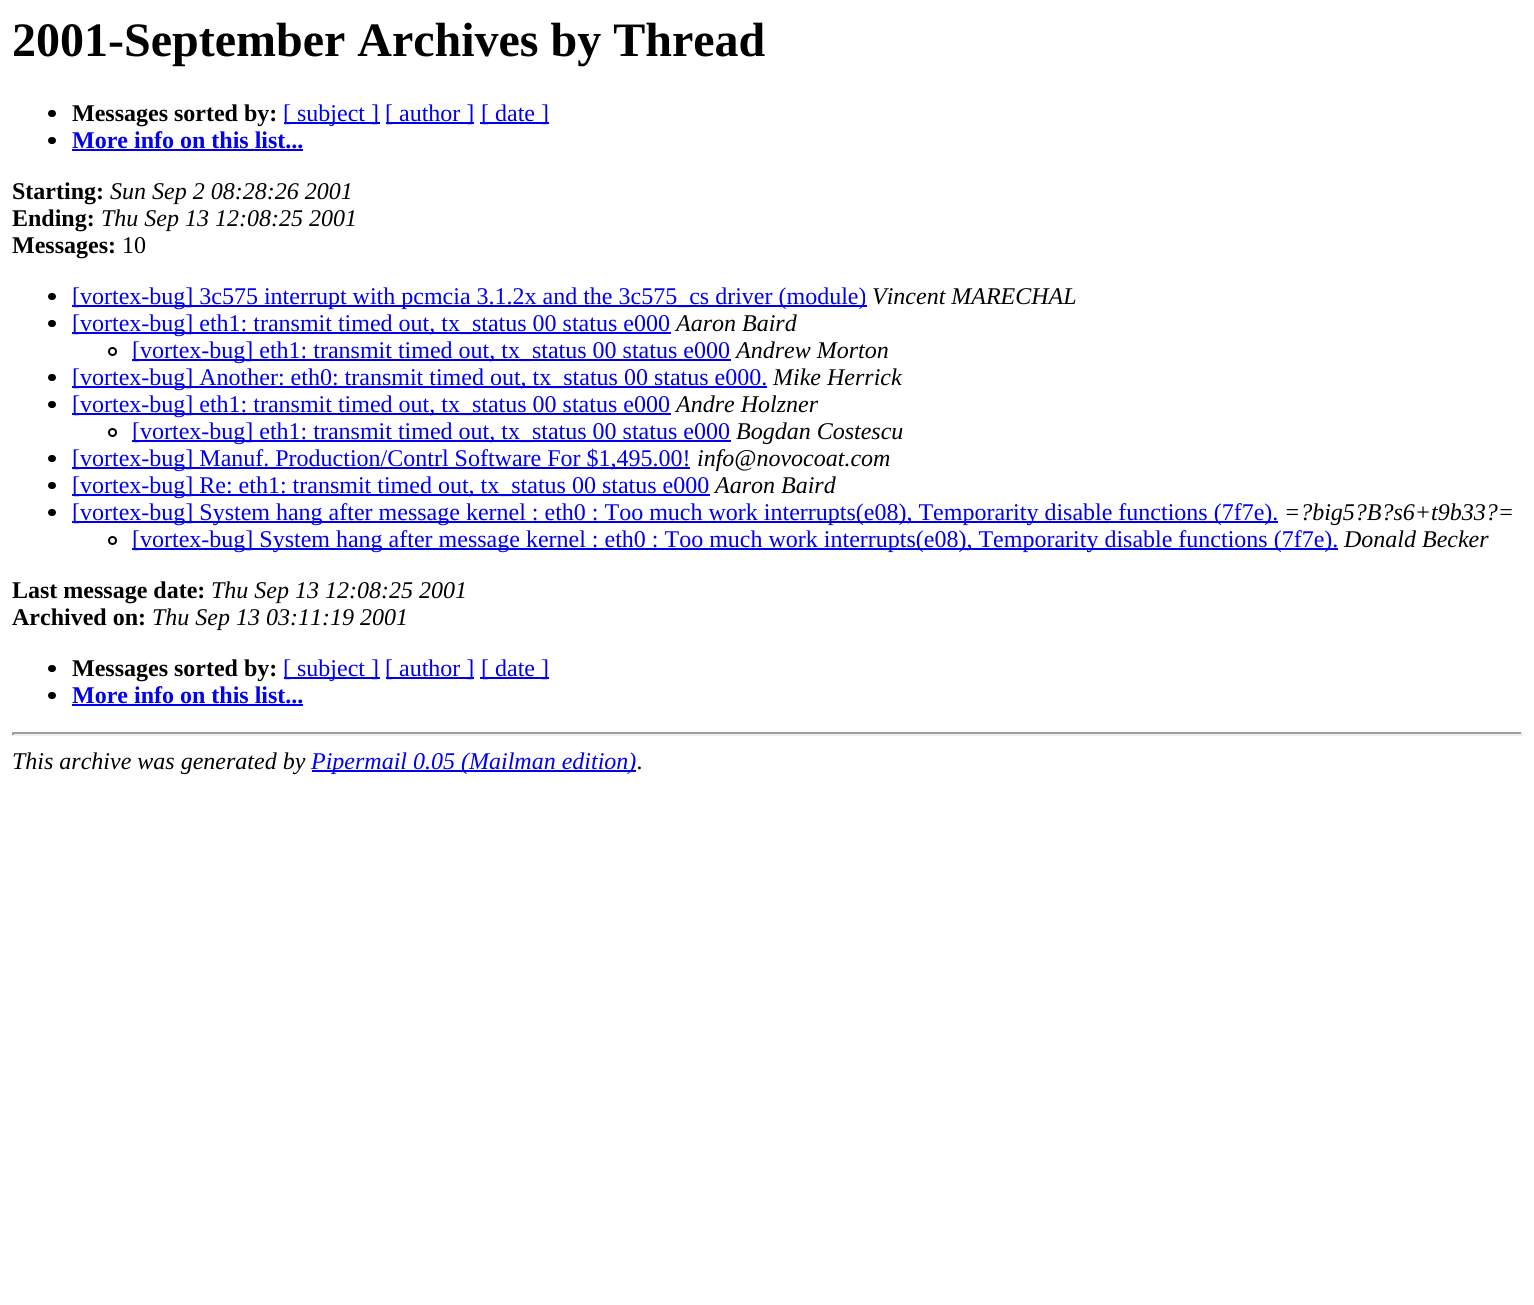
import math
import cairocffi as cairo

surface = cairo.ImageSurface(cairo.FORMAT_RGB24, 1534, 1305)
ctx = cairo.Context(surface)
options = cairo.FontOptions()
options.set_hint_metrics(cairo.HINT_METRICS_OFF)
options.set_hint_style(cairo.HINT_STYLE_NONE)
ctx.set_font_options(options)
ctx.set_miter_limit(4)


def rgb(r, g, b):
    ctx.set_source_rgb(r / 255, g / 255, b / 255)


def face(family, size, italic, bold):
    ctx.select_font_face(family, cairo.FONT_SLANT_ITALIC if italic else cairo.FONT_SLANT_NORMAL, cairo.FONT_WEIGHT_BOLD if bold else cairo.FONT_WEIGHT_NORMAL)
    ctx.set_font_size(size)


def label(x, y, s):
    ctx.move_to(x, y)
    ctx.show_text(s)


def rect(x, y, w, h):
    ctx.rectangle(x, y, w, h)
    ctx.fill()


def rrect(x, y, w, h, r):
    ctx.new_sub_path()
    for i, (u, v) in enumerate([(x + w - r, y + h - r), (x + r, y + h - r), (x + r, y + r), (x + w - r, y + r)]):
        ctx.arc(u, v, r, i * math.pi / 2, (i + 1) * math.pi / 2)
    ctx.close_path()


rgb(255, 255, 255)
ctx.paint()
face('Liberation Serif', 48, 0, 1)
rgb(0, 0, 0)
label(12, 56, '2001-September Archives by Thread')
rrect(48, 110, 8, 7, 3.5)
ctx.fill()
face('Liberation Serif', 24, 0, 1)
label(72, 121, 'Messages sorted by:')
rgb(0, 0, 238)
rect(284, 122, 96, 2)
face('Liberation Serif', 24, 0, 0)
label(283, 121, '[ subject ]')
rect(386, 122, 88, 2)
label(385, 121, '[ author ]')
rect(480, 122, 69, 2)
label(481, 121, '[ date ]')
rgb(0, 0, 0)
rrect(48, 137, 8, 7, 3.5)
ctx.fill()
face('Liberation Serif', 24, 0, 1)
rgb(0, 0, 238)
label(72, 148, 'More info on this list...')
rect(72, 149, 231, 2)
rgb(0, 0, 0)
label(12, 199, 'Starting:')
face('Liberation Serif', 24, 1, 0)
label(110, 199, 'Sun Sep 2 08:28:26 2001')
face('Liberation Serif', 24, 0, 1)
label(12, 226, 'Ending:')
face('Liberation Serif', 24, 1, 0)
label(101, 226, 'Thu Sep 13 12:08:25 2001')
face('Liberation Serif', 24, 0, 1)
label(12, 253, 'Messages:')
face('Liberation Serif', 24, 0, 0)
label(122, 253, '10')
rrect(48, 293, 8, 7, 3.5)
ctx.fill()
rgb(0, 0, 238)
rect(72, 305, 795, 2)
label(72, 304, '[vortex-bug] 3c575 interrupt with pcmcia 3.1.2x and the 3c575_cs driver (module)')
face('Liberation Serif', 24, 1, 0)
rgb(0, 0, 0)
label(872, 304, 'Vincent MARECHAL')
rrect(48, 320, 8, 7, 3.5)
ctx.fill()
rgb(0, 0, 238)
rect(72, 332, 599, 2)
face('Liberation Serif', 24, 0, 0)
label(72, 331, '[vortex-bug] eth1: transmit timed out, tx_status 00 status e000')
face('Liberation Serif', 24, 1, 0)
rgb(0, 0, 0)
label(676, 331, 'Aaron Baird')
ctx.new_path()
ctx.arc(112.5, 351.5, 3.5, 0, 2 * math.pi)
ctx.stroke()
rgb(0, 0, 238)
rect(132, 359, 599, 2)
face('Liberation Serif', 24, 0, 0)
label(132, 358, '[vortex-bug] eth1: transmit timed out, tx_status 00 status e000')
face('Liberation Serif', 24, 1, 0)
rgb(0, 0, 0)
label(736, 358, 'Andrew Morton')
rrect(48, 374, 8, 7, 3.5)
ctx.fill()
rgb(0, 0, 238)
rect(72, 386, 695, 2)
face('Liberation Serif', 24, 0, 0)
label(72, 385, '[vortex-bug] Another: eth0: transmit timed out, tx_status 00 status e000.')
face('Liberation Serif', 24, 1, 0)
rgb(0, 0, 0)
label(773, 385, 'Mike Herrick')
rrect(48, 401, 8, 7, 3.5)
ctx.fill()
rgb(0, 0, 238)
rect(72, 413, 599, 2)
face('Liberation Serif', 24, 0, 0)
label(72, 412, '[vortex-bug] eth1: transmit timed out, tx_status 00 status e000')
face('Liberation Serif', 24, 1, 0)
rgb(0, 0, 0)
label(676, 412, 'Andre Holzner')
ctx.new_path()
ctx.arc(112.5, 432.5, 3.5, 0, 2 * math.pi)
ctx.stroke()
rgb(0, 0, 238)
rect(132, 440, 599, 2)
face('Liberation Serif', 24, 0, 0)
label(132, 439, '[vortex-bug] eth1: transmit timed out, tx_status 00 status e000')
face('Liberation Serif', 24, 1, 0)
rgb(0, 0, 0)
label(736, 439, 'Bogdan Costescu')
rrect(48, 455, 8, 7, 3.5)
ctx.fill()
rgb(0, 0, 238)
rect(72, 467, 618, 2)
face('Liberation Serif', 24, 0, 0)
label(72, 466, '[vortex-bug] Manuf. Production/Contrl Software For $1,495.00!')
face('Liberation Serif', 24, 1, 0)
rgb(0, 0, 0)
label(697, 466, 'info@novocoat.com')
rrect(48, 482, 8, 7, 3.5)
ctx.fill()
rgb(0, 0, 238)
rect(72, 494, 638, 2)
face('Liberation Serif', 24, 0, 0)
label(72, 493, '[vortex-bug] Re: eth1: transmit timed out, tx_status 00 status e000')
face('Liberation Serif', 24, 1, 0)
rgb(0, 0, 0)
label(715, 493, 'Aaron Baird')
rrect(48, 509, 8, 7, 3.5)
ctx.fill()
rgb(0, 0, 238)
rect(72, 521, 1206, 2)
face('Liberation Serif', 24, 0, 0)
label(72, 520, '[vortex-bug] System hang after message kernel : eth0 : Too much work interrupts(e08), Temporarity disable functions (7f7e).')
face('Liberation Serif', 24, 1, 0)
rgb(0, 0, 0)
label(1284, 520, '=?big5?B?s6+t9b33?=')
ctx.new_path()
ctx.arc(112.5, 540.5, 3.5, 0, 2 * math.pi)
ctx.stroke()
rgb(0, 0, 238)
rect(132, 548, 1206, 2)
face('Liberation Serif', 24, 0, 0)
label(132, 547, '[vortex-bug] System hang after message kernel : eth0 : Too much work interrupts(e08), Temporarity disable functions (7f7e).')
face('Liberation Serif', 24, 1, 0)
rgb(0, 0, 0)
label(1344, 547, 'Donald Becker')
face('Liberation Serif', 24, 0, 1)
label(12, 598, 'Last message date:')
face('Liberation Serif', 24, 1, 0)
label(211, 598, 'Thu Sep 13 12:08:25 2001')
face('Liberation Serif', 24, 0, 1)
label(12, 625, 'Archived on:')
face('Liberation Serif', 24, 1, 0)
label(152, 625, 'Thu Sep 13 03:11:19 2001')
rrect(48, 665, 8, 7, 3.5)
ctx.fill()
face('Liberation Serif', 24, 0, 1)
label(72, 676, 'Messages sorted by:')
rgb(0, 0, 238)
rect(284, 677, 96, 2)
face('Liberation Serif', 24, 0, 0)
label(283, 676, '[ subject ]')
rect(386, 677, 88, 2)
label(385, 676, '[ author ]')
rect(480, 677, 69, 2)
label(481, 676, '[ date ]')
rgb(0, 0, 0)
rrect(48, 692, 8, 7, 3.5)
ctx.fill()
face('Liberation Serif', 24, 0, 1)
rgb(0, 0, 238)
label(72, 703, 'More info on this list...')
rect(72, 704, 231, 2)
rgb(159, 159, 159)
rect(12, 732, 1511, 2)
rgb(238, 238, 238)
rect(1521, 732, 2, 3)
rect(12, 734, 1511, 2)
rgb(159, 159, 159)
rect(12, 732, 2, 3)
face('Liberation Serif', 24, 1, 0)
rgb(0, 0, 0)
label(12, 769, 'This archive was generated by')
rgb(0, 0, 238)
rect(312, 770, 324, 2)
label(311, 769, 'Pipermail 0.05 (Mailman edition)')
rgb(0, 0, 0)
label(637, 769, '.')
surface.write_to_png('render.png')
